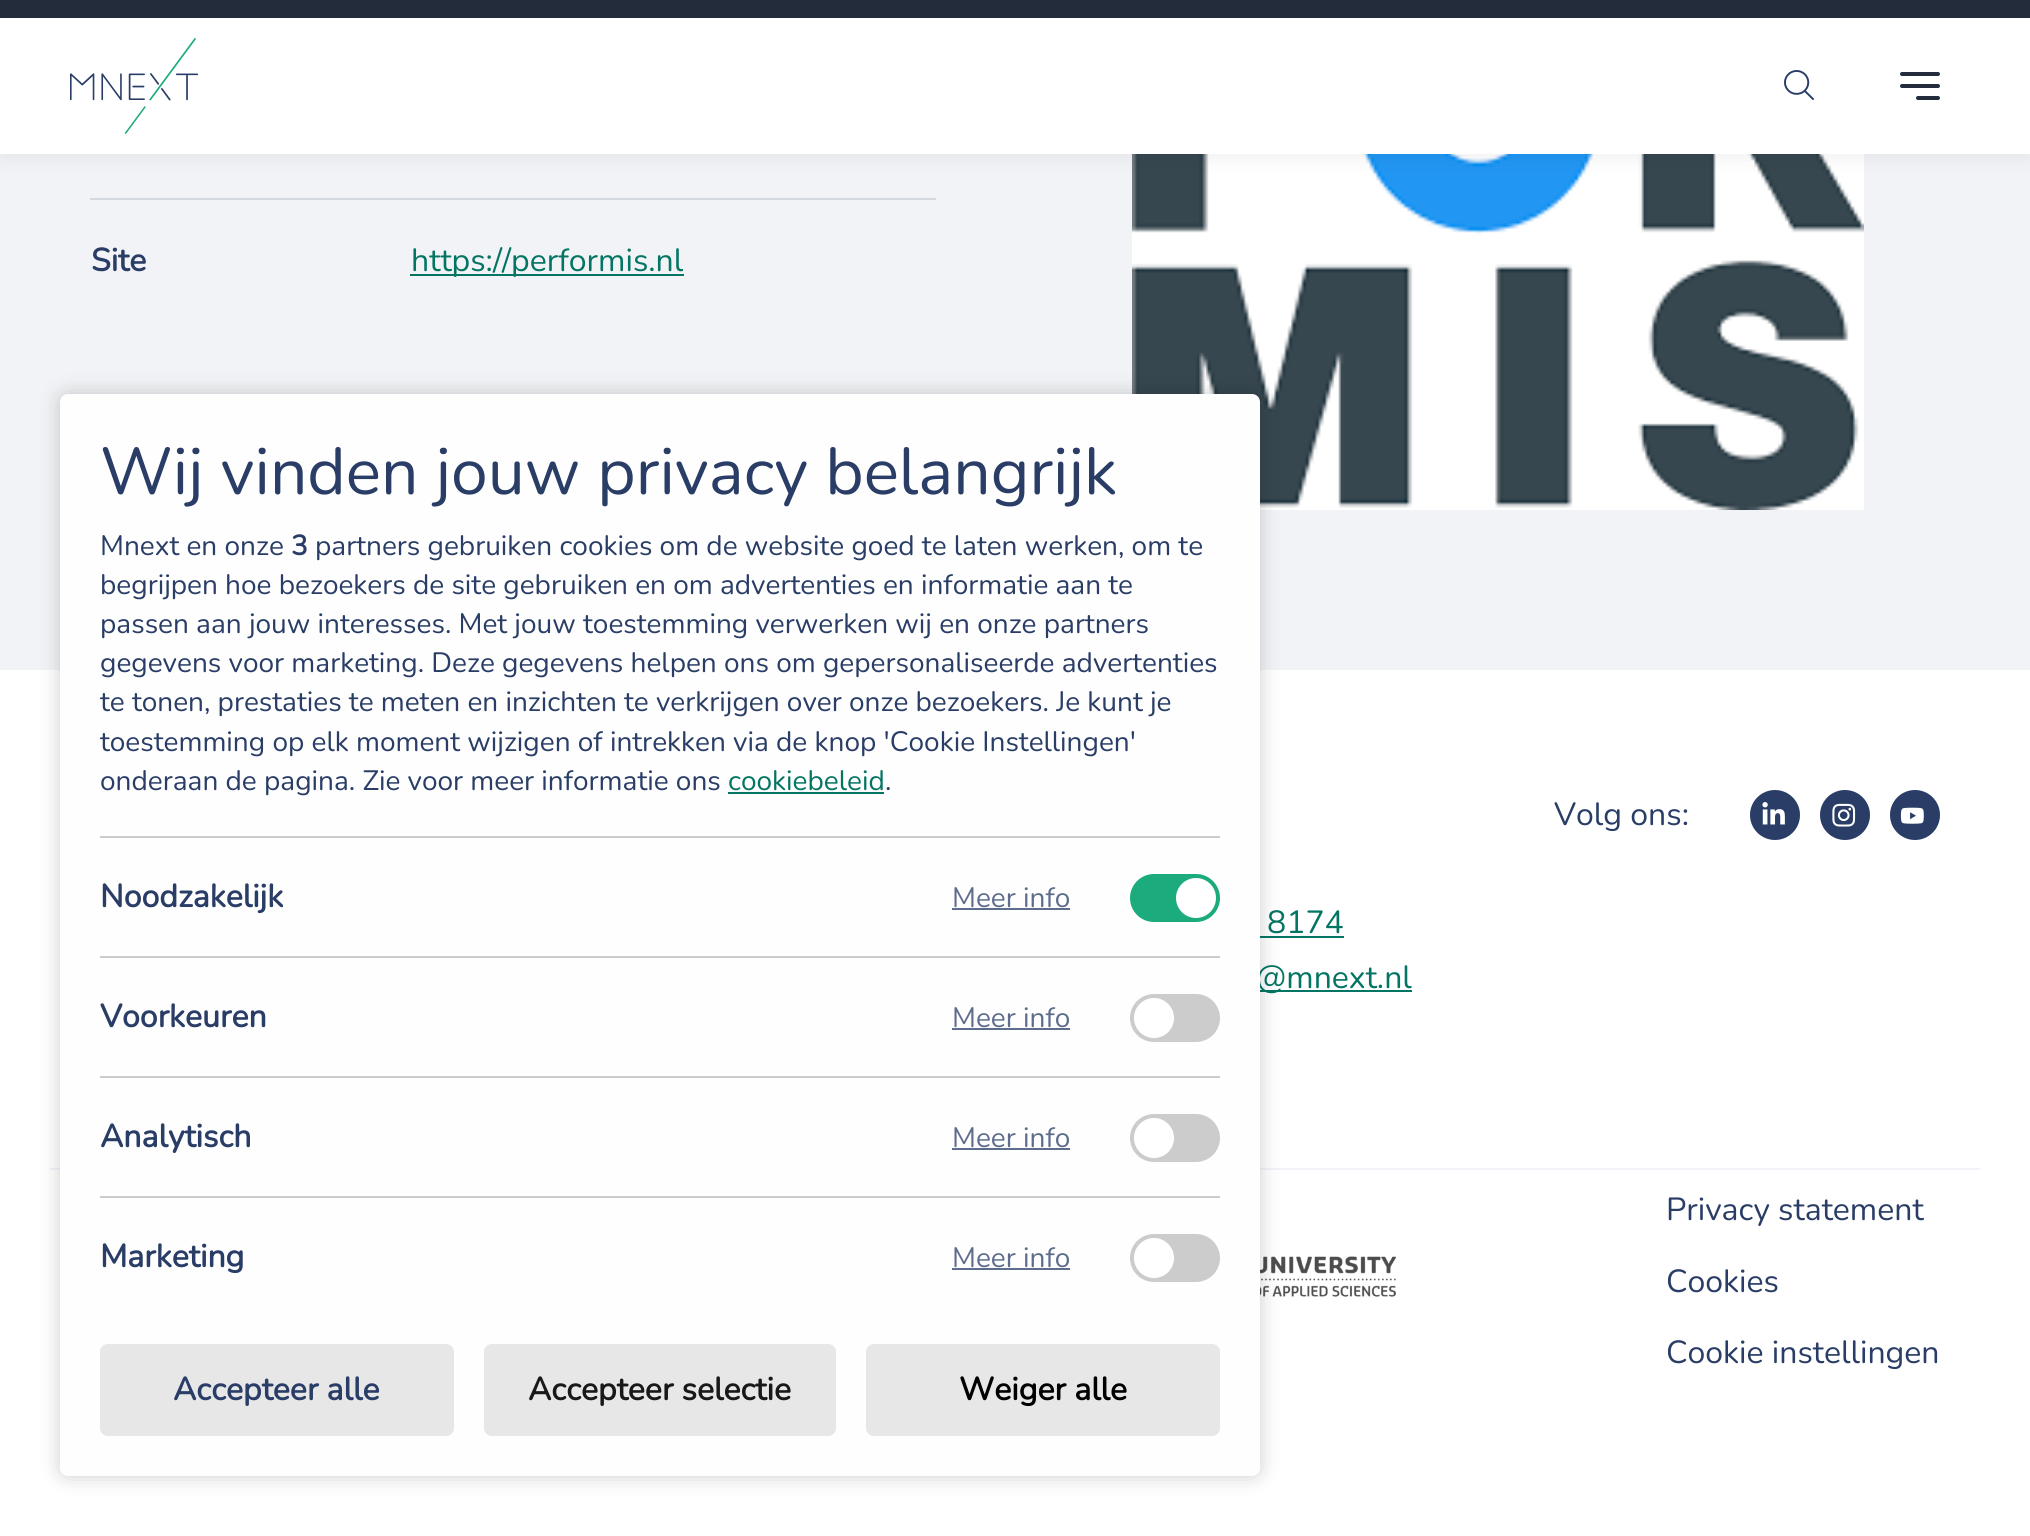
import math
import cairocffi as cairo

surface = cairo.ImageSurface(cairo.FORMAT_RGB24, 2030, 1536)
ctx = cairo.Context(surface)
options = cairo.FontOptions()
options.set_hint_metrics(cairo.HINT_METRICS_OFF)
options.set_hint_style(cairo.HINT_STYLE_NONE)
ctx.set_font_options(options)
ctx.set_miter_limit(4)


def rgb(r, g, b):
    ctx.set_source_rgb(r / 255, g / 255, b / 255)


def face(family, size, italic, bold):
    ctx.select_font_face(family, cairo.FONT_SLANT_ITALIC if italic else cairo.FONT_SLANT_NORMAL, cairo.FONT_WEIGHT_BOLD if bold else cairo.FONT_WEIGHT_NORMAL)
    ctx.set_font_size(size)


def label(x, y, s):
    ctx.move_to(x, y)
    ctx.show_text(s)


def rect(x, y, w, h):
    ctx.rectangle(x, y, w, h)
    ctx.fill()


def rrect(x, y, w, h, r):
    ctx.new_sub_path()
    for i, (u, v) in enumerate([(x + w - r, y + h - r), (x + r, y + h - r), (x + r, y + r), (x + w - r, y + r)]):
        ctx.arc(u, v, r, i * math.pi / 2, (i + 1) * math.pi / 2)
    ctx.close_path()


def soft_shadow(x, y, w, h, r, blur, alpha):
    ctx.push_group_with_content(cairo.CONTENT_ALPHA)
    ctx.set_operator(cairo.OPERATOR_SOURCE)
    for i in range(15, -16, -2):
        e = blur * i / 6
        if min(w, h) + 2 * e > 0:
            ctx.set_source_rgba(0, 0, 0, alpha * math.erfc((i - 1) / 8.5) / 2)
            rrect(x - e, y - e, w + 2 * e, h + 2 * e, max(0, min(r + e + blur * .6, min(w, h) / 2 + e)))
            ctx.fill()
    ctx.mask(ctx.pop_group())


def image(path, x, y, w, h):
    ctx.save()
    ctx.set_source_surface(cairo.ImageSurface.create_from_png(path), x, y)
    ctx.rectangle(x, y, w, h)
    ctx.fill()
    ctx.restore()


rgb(255, 255, 255)
ctx.paint()
rgb(242, 243, 246)
rect(0, 154, 2030, 516)
image('image2.png', 1132, 154, 732, 356)
rgb(0, 0, 0)
soft_shadow(0, -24, 2030, 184, 0, 8, 0.05)
rgb(255, 255, 255)
rect(0, 18, 2030, 136)
rgb(34, 44, 59)
rect(0, 0, 2030, 18)
image('image0.png', 70, 38, 129, 96)
image('image1.png', 1784, 70, 30, 30)
rrect(1900, 84, 40, 4, 2)
ctx.fill()
rrect(1900, 72, 40, 4, 2)
ctx.fill()
rrect(1916, 96, 24, 4, 2)
ctx.fill()
rgb(212, 216, 224)
rect(90, 198, 846, 2)
face('Nunito', 32, 0, 1)
rgb(41, 61, 102)
label(91, 271, 'Site')
rgb(4, 117, 99)
rect(410, 274, 274, 2)
face('Nunito', 32, 0, 0)
label(411, 271, 'https://performis.nl')
rgb(41, 61, 102)
label(1554, 825, 'Volg ons:')
ctx.new_path()
ctx.arc(1775, 815, 25, 0, 2 * math.pi)
ctx.fill()
image('image3.png', 1762, 802, 23, 23)
ctx.arc(1845, 815, 25, 0, 2 * math.pi)
ctx.fill()
image('image4.png', 1832, 803, 24, 24)
ctx.arc(1915, 815, 25, 0, 2 * math.pi)
ctx.fill()
image('image5.png', 1900, 807, 24, 17)
rgb(4, 117, 99)
label(1267, 933, '8174')
rect(1260, 936, 84, 2)
rect(1260, 990, 152, 2)
label(1256, 988, '@mnext.nl')
rgb(244, 242, 249)
rect(50, 1168, 1930, 2)
image('image6.png', 1260, 1256, 136, 41)
rgb(41, 61, 102)
label(1666, 1220, 'Privacy statement')
label(1666, 1292, 'Cookies')
label(1666, 1363, 'Cookie instellingen')
rgb(0, 0, 0)
soft_shadow(60, 394, 1200, 1082, 8, 10, 0.2)
rgb(254, 254, 254)
rrect(60, 394, 1200, 1082, 8)
ctx.fill()
rgb(204, 204, 204)
rect(100, 836, 1120, 2)
face('Nunito', 66, 0, 0)
rgb(41, 61, 102)
label(100, 494, 'Wij vinden jouw privacy belangrijk')
face('Nunito', 28, 0, 0)
label(100, 555, 'Mnext en onze')
face('Nunito', 28, 0, 1)
label(291, 555, '3')
face('Nunito', 28, 0, 0)
label(315, 555, 'partners gebruiken cookies om de website goed te laten werken, om te')
label(100, 594, 'begrijpen hoe bezoekers de site gebruiken en om advertenties en informatie aan te')
label(100, 633, 'passen aan jouw interesses. Met jouw toestemming verwerken wij en onze partners')
label(100, 672, 'gegevens voor marketing. Deze gegevens helpen ons om gepersonaliseerde advertenties')
label(100, 711, 'te tonen, prestaties te meten en inzichten te verkrijgen over onze bezoekers. Je kunt je')
label(100, 751, 'toestemming op elk moment wijzigen of intrekken via de knop \'Cookie Instellingen\'')
label(100, 790, 'onderaan de pagina. Zie voor meer informatie ons')
rgb(4, 117, 99)
label(728, 790, 'cookiebeleid')
rect(728, 792, 156, 2)
rgb(41, 61, 102)
label(885, 790, '.')
rgb(204, 204, 204)
rect(100, 956, 1120, 2)
face('Nunito', 32, 0, 1)
rgb(41, 61, 102)
label(100, 907, 'Noodzakelijk')
face('Nunito', 28, 0, 0)
rgb(94, 109, 140)
label(952, 907, 'Meer info')
rect(952, 908, 118, 2)
rgb(28, 171, 125)
rrect(1130, 874, 90, 48, 24)
ctx.fill()
rgb(255, 255, 255)
ctx.arc(1196, 898, 20, 0, 2 * math.pi)
ctx.fill()
rgb(204, 204, 204)
rect(100, 1076, 1120, 2)
face('Nunito', 32, 0, 1)
rgb(41, 61, 102)
label(100, 1027, 'Voorkeuren')
face('Nunito', 28, 0, 0)
rgb(94, 109, 140)
label(952, 1027, 'Meer info')
rect(952, 1028, 118, 2)
rgb(204, 204, 204)
rrect(1130, 994, 90, 48, 24)
ctx.fill()
rgb(255, 255, 255)
ctx.arc(1154, 1018, 20, 0, 2 * math.pi)
ctx.fill()
rgb(204, 204, 204)
rect(100, 1196, 1120, 2)
face('Nunito', 32, 0, 1)
rgb(41, 61, 102)
label(100, 1147, 'Analytisch')
face('Nunito', 28, 0, 0)
rgb(94, 109, 140)
label(952, 1147, 'Meer info')
rect(952, 1148, 118, 2)
rgb(204, 204, 204)
rrect(1130, 1114, 90, 48, 24)
ctx.fill()
rgb(255, 255, 255)
ctx.arc(1154, 1138, 20, 0, 2 * math.pi)
ctx.fill()
face('Nunito', 32, 0, 1)
rgb(41, 61, 102)
label(100, 1267, 'Marketing')
face('Nunito', 28, 0, 0)
rgb(94, 109, 140)
label(952, 1267, 'Meer info')
rect(952, 1268, 118, 2)
rgb(204, 204, 204)
rrect(1130, 1234, 90, 48, 24)
ctx.fill()
rgb(255, 255, 255)
ctx.arc(1154, 1258, 20, 0, 2 * math.pi)
ctx.fill()
rgb(231, 231, 231)
rrect(100, 1344, 354, 92, 8)
ctx.fill()
face('Nunito', 32, 0, 1)
rgb(41, 61, 102)
label(173, 1400, 'Accepteer alle')
rgb(231, 231, 231)
rrect(484, 1344, 352, 92, 8)
ctx.fill()
rgb(25, 25, 25)
label(528, 1400, 'Accepteer selectie')
rgb(231, 231, 231)
rrect(866, 1344, 354, 92, 8)
ctx.fill()
rgb(0, 0, 0)
label(959, 1400, 'Weiger alle')
surface.write_to_png('render.png')
